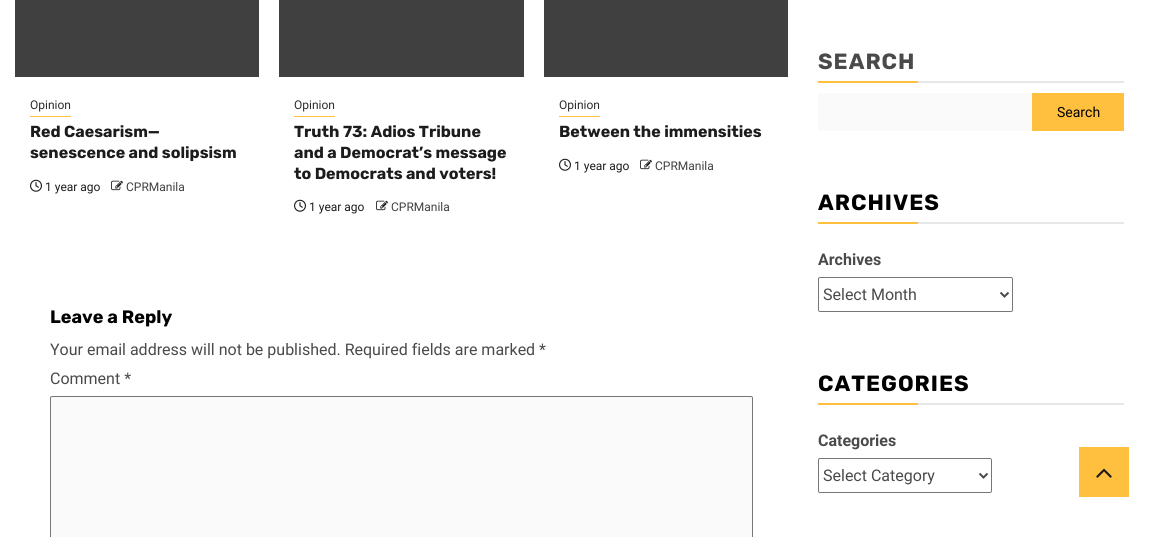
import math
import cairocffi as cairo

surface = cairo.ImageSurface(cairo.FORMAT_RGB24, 1149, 537)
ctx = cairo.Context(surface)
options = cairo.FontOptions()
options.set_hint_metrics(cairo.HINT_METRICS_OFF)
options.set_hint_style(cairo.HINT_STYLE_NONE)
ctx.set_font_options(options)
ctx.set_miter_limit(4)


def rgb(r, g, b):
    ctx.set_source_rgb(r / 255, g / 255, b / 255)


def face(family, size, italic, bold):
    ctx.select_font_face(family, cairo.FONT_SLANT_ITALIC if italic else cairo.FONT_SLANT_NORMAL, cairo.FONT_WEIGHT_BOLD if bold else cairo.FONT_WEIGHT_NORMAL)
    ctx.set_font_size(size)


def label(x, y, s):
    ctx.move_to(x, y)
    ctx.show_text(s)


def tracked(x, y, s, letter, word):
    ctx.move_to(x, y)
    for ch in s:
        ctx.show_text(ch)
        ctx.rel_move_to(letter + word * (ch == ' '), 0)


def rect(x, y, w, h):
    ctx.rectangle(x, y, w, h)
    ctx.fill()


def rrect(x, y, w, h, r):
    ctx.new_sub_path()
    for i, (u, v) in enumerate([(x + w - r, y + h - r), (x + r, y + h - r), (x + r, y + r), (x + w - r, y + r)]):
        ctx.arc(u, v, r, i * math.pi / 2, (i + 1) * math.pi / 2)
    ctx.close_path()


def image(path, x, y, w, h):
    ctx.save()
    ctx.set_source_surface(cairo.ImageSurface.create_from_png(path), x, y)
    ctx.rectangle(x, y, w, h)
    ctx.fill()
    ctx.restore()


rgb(255, 255, 255)
ctx.paint()
rgb(64, 64, 64)
rect(15, 0, 244, 77)
rgb(255, 191, 63)
rect(30, 116, 41, 1)
face('Roboto', 12, 0, 0)
rgb(43, 43, 43)
label(30, 109, 'Opinion')
face('Rubik', 16, 0, 1)
rgb(28, 28, 28)
label(30, 137, 'Red Caesarism—')
label(30, 158, 'senescence and solipsism')
image('image0.png', 30, 179, 12, 13)
face('Roboto', 12, 0, 0)
label(45, 191, '1 year ago')
image('image1.png', 111, 180, 12, 11)
rgb(64, 64, 64)
label(126, 191, 'CPRManila')
rect(279, 0, 245, 77)
rgb(255, 191, 63)
rect(294, 116, 41, 1)
rgb(43, 43, 43)
label(294, 109, 'Opinion')
face('Rubik', 16, 0, 1)
rgb(28, 28, 28)
label(294, 137, 'Truth 73: Adios Tribune')
label(294, 158, 'and a Democrat’s message')
label(294, 179, 'to Democrats and voters!')
image('image0.png', 294, 199, 12, 13)
face('Roboto', 12, 0, 0)
label(309, 211, '1 year ago')
image('image1.png', 376, 200, 12, 11)
rgb(64, 64, 64)
label(391, 211, 'CPRManila')
rect(544, 0, 244, 77)
rgb(255, 191, 63)
rect(559, 116, 41, 1)
rgb(43, 43, 43)
label(559, 109, 'Opinion')
face('Rubik', 16, 0, 1)
rgb(28, 28, 28)
label(559, 137, 'Between the immensities')
image('image0.png', 559, 158, 12, 13)
face('Roboto', 12, 0, 0)
label(574, 170, '1 year ago')
image('image1.png', 640, 159, 12, 11)
rgb(64, 64, 64)
label(655, 170, 'CPRManila')
face('Rubik', 18, 0, 1)
rgb(0, 0, 0)
label(50, 323, 'Leave a Reply')
face('Roboto', 16, 0, 0)
rgb(74, 74, 74)
label(50, 355, 'Your email address will not be published. Required fields are marked *')
label(50, 384, 'Comment *')
rgb(250, 250, 250)
rrect(50.5, 396.5, 702, 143, 1.5)
ctx.fill_preserve()
rgb(118, 118, 118)
ctx.set_line_width(1)
ctx.stroke()
face('Rubik', 22, 0, 1)
rgb(74, 74, 74)
tracked(818, 69, 'SEARCH', 1, 0)
rgb(255, 191, 63)
rect(818, 81, 100, 2)
rgb(231, 231, 231)
rect(918, 81, 206, 2)
rgb(250, 250, 250)
rect(818, 93, 214, 38)
rgb(255, 191, 63)
rect(1032, 93, 92, 38)
face('Roboto', 14, 0, 0)
rgb(0, 0, 0)
label(1057, 117, 'Search')
face('Rubik', 22, 0, 1)
tracked(818, 210, 'ARCHIVES', 1, 0)
rgb(255, 191, 63)
rect(818, 222, 100, 2)
rgb(231, 231, 231)
rect(918, 222, 206, 2)
face('Roboto', 16, 0, 1)
rgb(74, 74, 74)
label(818, 265, 'Archives')
rrect(818.5, 277.5, 194, 34, 1.5)
rgb(118, 118, 118)
ctx.stroke()
ctx.new_path()
ctx.move_to(1000.5, 292.5)
ctx.line_to(1004.5, 296.5)
ctx.line_to(1008.5, 292.5)
rgb(74, 74, 74)
ctx.set_line_width(2)
ctx.stroke()
face('Roboto', 16, 0, 0)
label(823, 300, 'Select Month')
face('Rubik', 22, 0, 1)
rgb(0, 0, 0)
tracked(818, 391, 'CATEGORIES', 1, 0)
rgb(255, 191, 63)
rect(818, 403, 100, 2)
rgb(231, 231, 231)
rect(918, 403, 206, 2)
face('Roboto', 16, 0, 1)
rgb(74, 74, 74)
label(818, 446, 'Categories')
rrect(818.5, 458.5, 173, 34, 1.5)
rgb(118, 118, 118)
ctx.set_line_width(1)
ctx.stroke()
ctx.new_path()
ctx.move_to(979.5, 473.5)
ctx.line_to(983.5, 477.5)
ctx.line_to(987.5, 473.5)
rgb(74, 74, 74)
ctx.set_line_width(2)
ctx.stroke()
face('Roboto', 16, 0, 0)
label(823, 481, 'Select Category')
rgb(255, 191, 63)
rect(1079, 447, 50, 50)
image('image2.png', 1096, 468, 16, 10)
surface.write_to_png('render.png')
